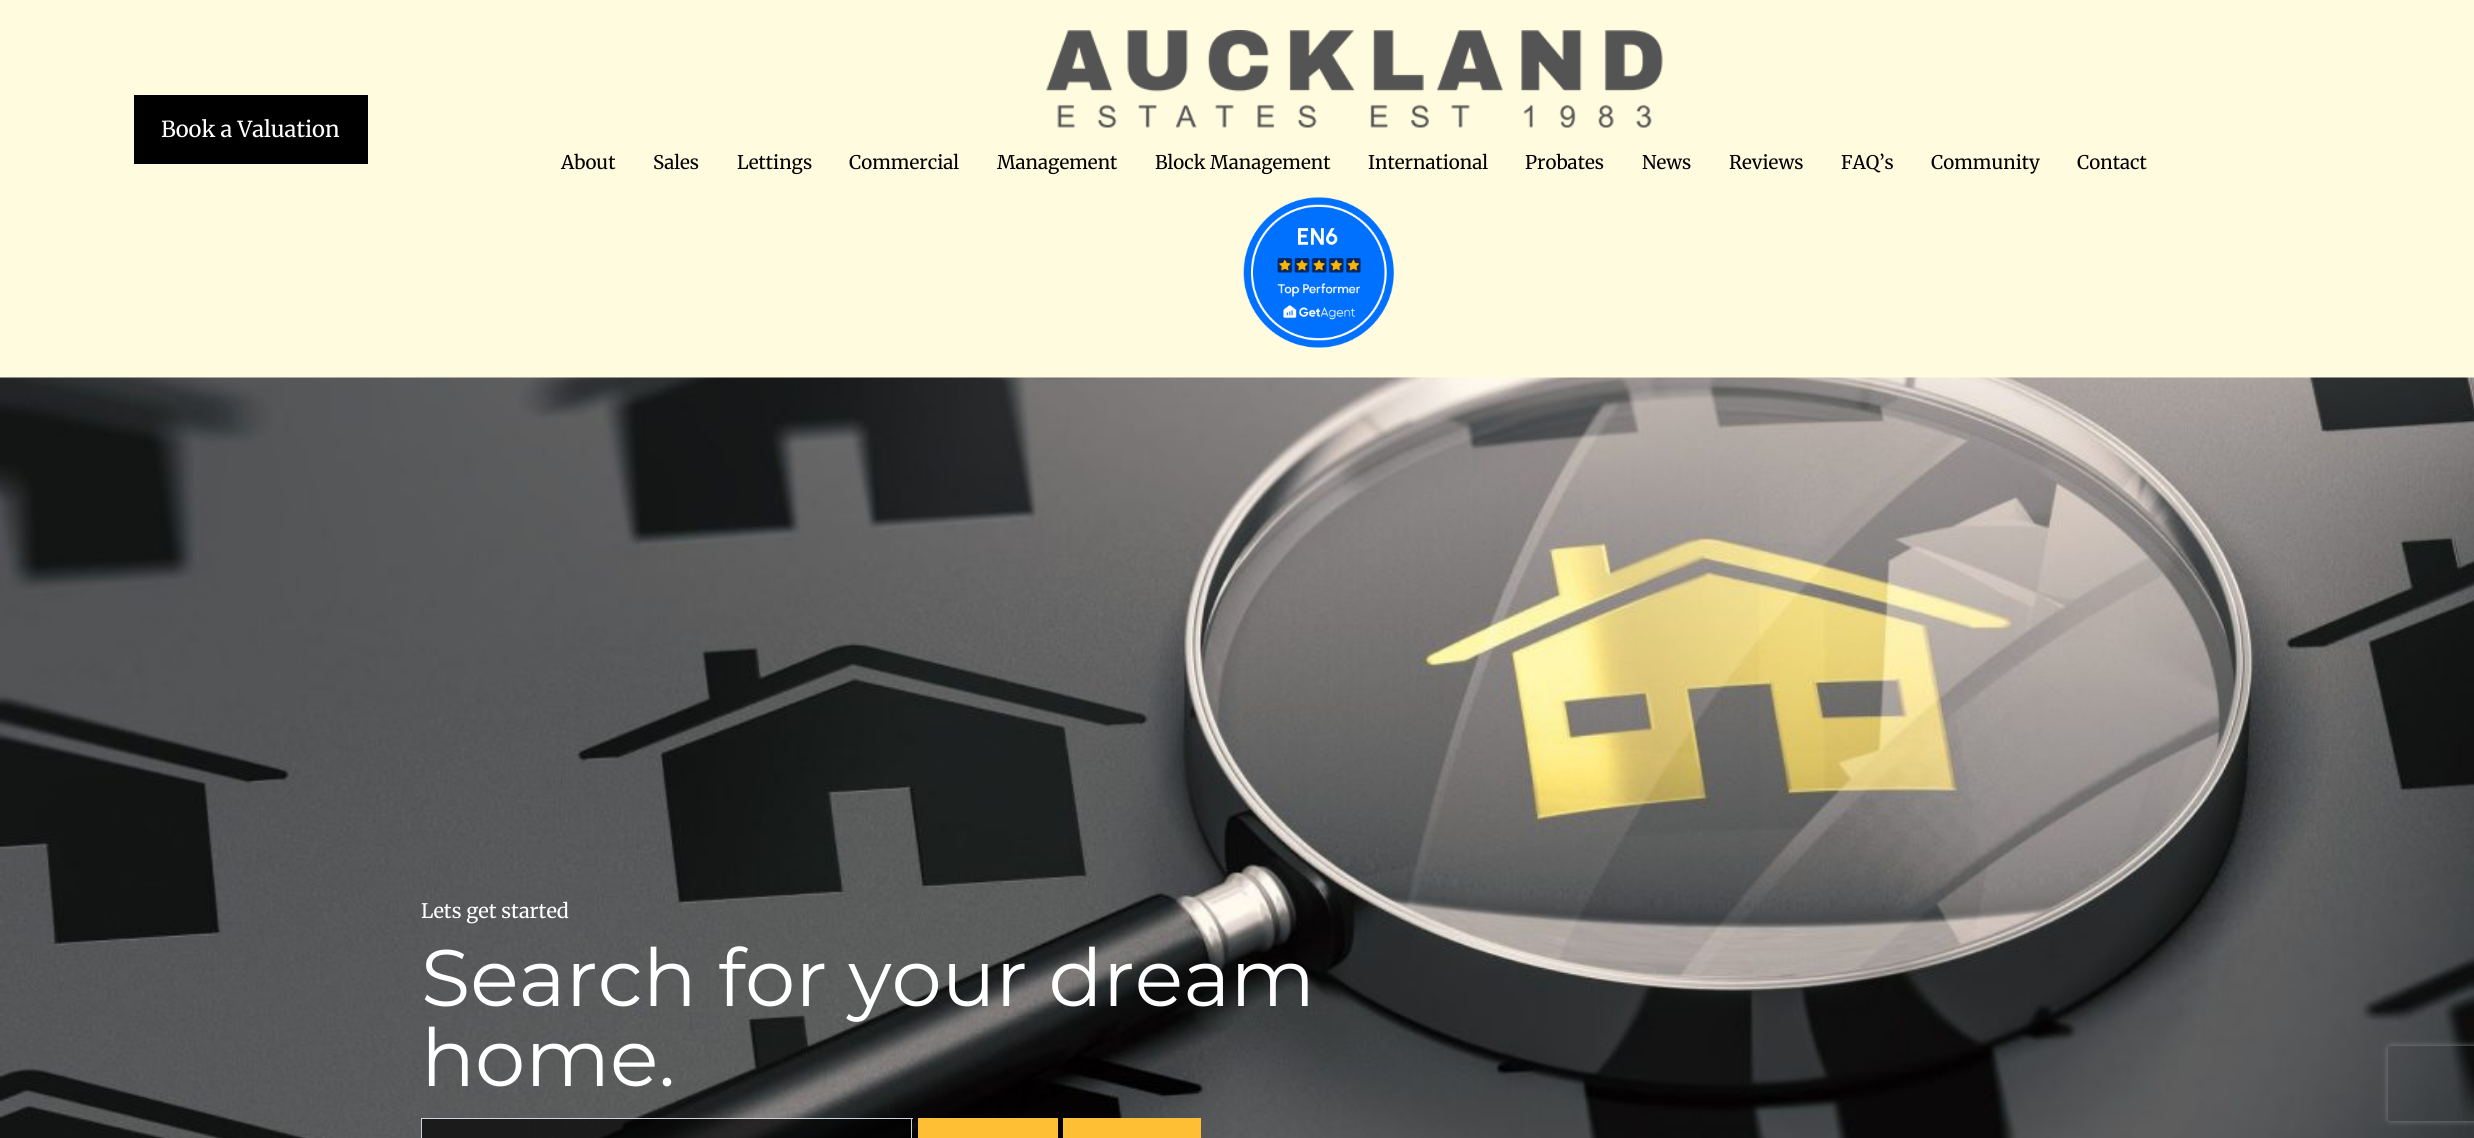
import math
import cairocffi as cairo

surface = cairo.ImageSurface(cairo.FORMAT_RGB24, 2474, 1138)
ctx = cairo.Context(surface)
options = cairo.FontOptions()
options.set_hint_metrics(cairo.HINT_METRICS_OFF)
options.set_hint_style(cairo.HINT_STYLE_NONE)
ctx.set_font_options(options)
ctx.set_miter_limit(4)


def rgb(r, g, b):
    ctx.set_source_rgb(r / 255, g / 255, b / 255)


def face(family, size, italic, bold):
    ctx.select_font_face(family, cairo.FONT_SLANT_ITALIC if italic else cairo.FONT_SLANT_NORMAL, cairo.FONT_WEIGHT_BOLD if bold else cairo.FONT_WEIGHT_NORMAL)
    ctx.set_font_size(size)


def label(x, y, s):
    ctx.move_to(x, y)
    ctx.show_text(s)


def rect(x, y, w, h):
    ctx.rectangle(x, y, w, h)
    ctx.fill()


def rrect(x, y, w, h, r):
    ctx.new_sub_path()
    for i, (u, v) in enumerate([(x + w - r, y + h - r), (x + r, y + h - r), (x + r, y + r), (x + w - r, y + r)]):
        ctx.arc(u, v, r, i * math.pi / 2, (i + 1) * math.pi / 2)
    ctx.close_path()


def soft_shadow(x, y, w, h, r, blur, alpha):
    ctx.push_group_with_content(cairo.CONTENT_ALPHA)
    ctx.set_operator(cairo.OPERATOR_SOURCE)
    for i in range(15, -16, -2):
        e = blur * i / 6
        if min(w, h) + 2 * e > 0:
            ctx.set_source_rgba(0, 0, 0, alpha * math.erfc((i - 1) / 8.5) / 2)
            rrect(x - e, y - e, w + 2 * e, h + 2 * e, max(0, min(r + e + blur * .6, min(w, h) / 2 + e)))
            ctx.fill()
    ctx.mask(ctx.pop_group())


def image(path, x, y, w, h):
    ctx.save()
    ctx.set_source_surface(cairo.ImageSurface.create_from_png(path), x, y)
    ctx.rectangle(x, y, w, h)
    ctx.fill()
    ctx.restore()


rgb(255, 251, 222)
ctx.paint()
rgb(0, 0, 0)
rect(134, 95, 234, 69)
face('Merriweather', 22, 0, 0)
rgb(255, 255, 255)
label(161, 137, 'Book a Valuation')
image('image0.png', 1046, 30, 617, 98)
face('Merriweather', 18.75, 0, 0)
rgb(0, 0, 0)
label(561, 169, 'About')
label(653, 169, 'Sales')
label(737, 169, 'Lettings')
label(849, 169, 'Commercial')
label(997, 169, 'Management')
label(1155, 169, 'Block Management')
label(1368, 169, 'International')
label(1525, 169, 'Probates')
label(1642, 169, 'News')
label(1729, 169, 'Reviews')
label(1841, 169, 'FAQ’s')
label(1931, 169, 'Community')
label(2077, 169, 'Contact')
image('image1.png', 1243, 197, 151, 151)
image('image2.png', 0, 377, 2474, 761)
face('Merriweather', 20, 0, 0)
rgb(255, 255, 255)
label(421, 918, 'Lets get started')
face('Montserrat Thin', 80, 0, 0)
label(421, 1006, 'Search for your dream')
label(421, 1086, 'home.')
ctx.set_source_rgba(0, 0, 0, 0.7)
rect(422, 1119, 56, 19)
rgb(206, 212, 218)
rect(421, 1118, 492, 1)
rect(421, 1118, 1, 20)
ctx.set_source_rgba(0, 0, 0, 0.7)
rect(478, 1119, 433, 19)
rgb(206, 212, 218)
rect(911, 1118, 1, 20)
rgb(255, 191, 52)
rect(918, 1118, 140, 20)
rect(1063, 1118, 138, 20)
ctx.save()
ctx.set_fill_rule(cairo.FILL_RULE_EVEN_ODD)
ctx.new_path()
ctx.move_to(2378, 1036)
ctx.line_to(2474, 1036)
ctx.line_to(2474, 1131)
ctx.line_to(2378, 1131)
ctx.close_path()
ctx.move_to(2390.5, 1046)
ctx.line_to(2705.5, 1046)
ctx.curve_to(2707, 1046, 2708, 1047, 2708, 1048.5)
ctx.line_to(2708, 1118.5)
ctx.curve_to(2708, 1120, 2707, 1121, 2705.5, 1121)
ctx.line_to(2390.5, 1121)
ctx.curve_to(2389, 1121, 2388, 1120, 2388, 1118.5)
ctx.line_to(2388, 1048.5)
ctx.curve_to(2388, 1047, 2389, 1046, 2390.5, 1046)
ctx.close_path()
ctx.clip()
rgb(128, 128, 128)
soft_shadow(2388, 1046, 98, 75, 2.5, 3, 1)
ctx.restore()
surface.write_to_png('render.png')
